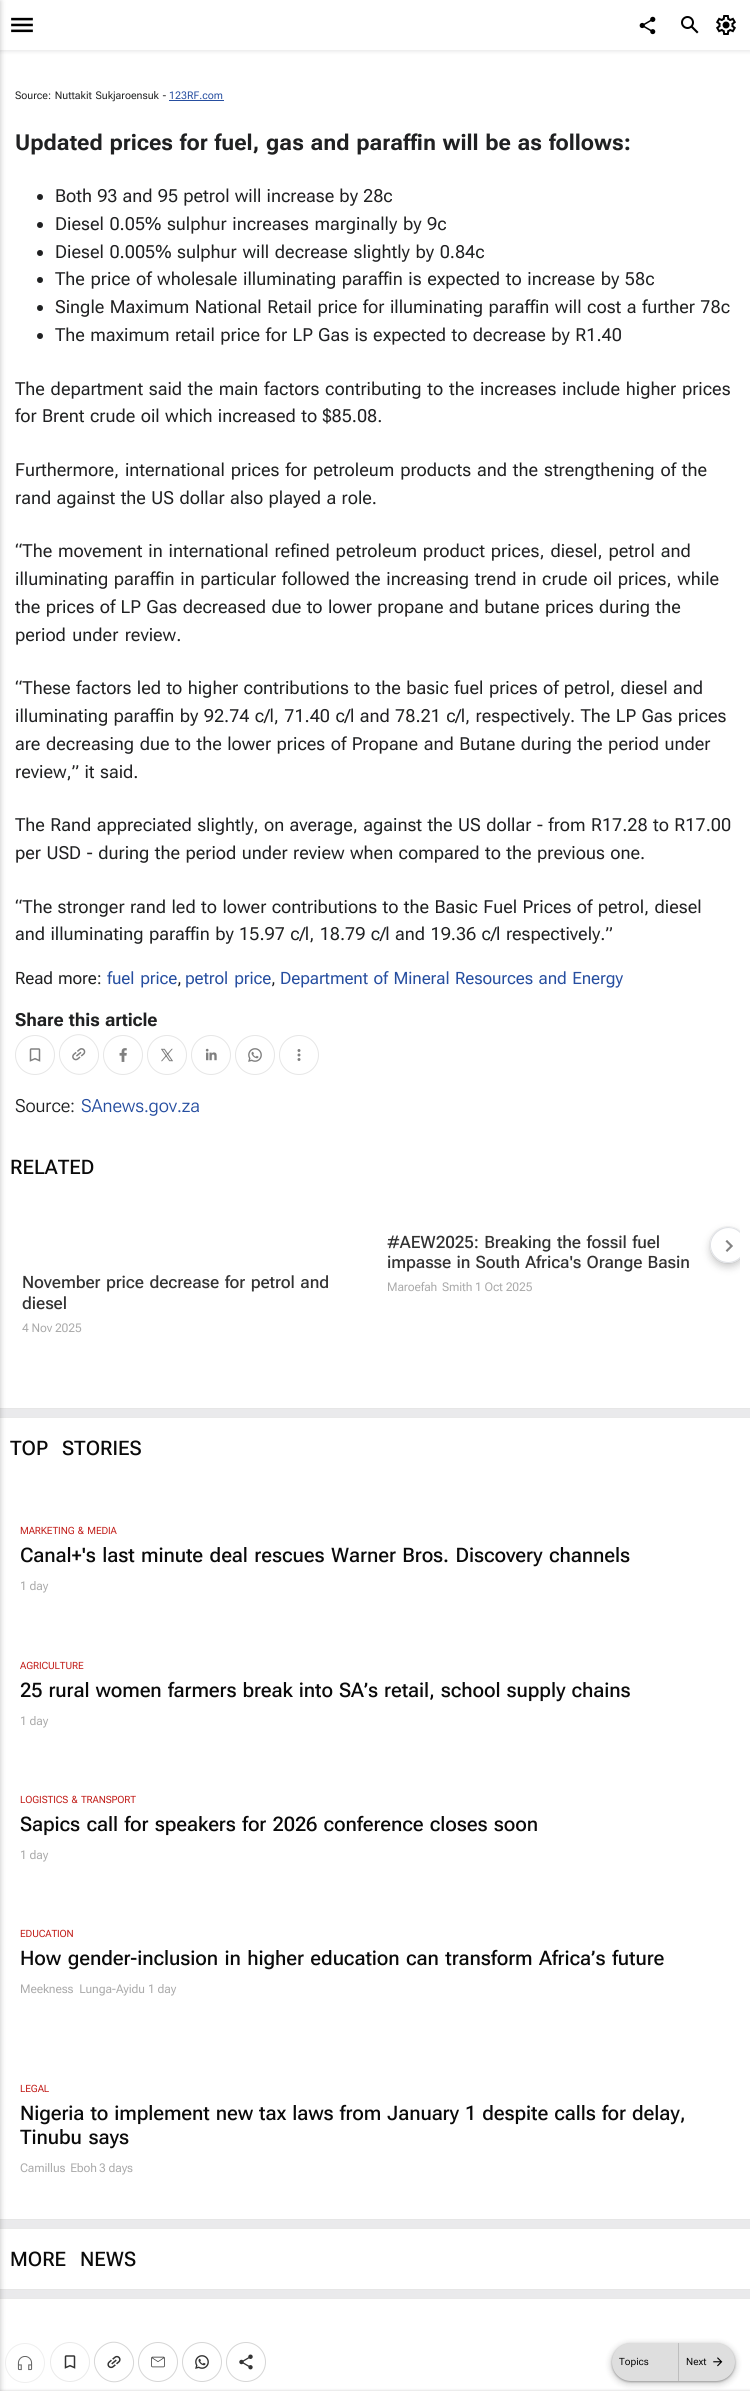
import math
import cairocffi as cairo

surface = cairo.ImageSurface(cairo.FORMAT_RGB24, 750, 2391)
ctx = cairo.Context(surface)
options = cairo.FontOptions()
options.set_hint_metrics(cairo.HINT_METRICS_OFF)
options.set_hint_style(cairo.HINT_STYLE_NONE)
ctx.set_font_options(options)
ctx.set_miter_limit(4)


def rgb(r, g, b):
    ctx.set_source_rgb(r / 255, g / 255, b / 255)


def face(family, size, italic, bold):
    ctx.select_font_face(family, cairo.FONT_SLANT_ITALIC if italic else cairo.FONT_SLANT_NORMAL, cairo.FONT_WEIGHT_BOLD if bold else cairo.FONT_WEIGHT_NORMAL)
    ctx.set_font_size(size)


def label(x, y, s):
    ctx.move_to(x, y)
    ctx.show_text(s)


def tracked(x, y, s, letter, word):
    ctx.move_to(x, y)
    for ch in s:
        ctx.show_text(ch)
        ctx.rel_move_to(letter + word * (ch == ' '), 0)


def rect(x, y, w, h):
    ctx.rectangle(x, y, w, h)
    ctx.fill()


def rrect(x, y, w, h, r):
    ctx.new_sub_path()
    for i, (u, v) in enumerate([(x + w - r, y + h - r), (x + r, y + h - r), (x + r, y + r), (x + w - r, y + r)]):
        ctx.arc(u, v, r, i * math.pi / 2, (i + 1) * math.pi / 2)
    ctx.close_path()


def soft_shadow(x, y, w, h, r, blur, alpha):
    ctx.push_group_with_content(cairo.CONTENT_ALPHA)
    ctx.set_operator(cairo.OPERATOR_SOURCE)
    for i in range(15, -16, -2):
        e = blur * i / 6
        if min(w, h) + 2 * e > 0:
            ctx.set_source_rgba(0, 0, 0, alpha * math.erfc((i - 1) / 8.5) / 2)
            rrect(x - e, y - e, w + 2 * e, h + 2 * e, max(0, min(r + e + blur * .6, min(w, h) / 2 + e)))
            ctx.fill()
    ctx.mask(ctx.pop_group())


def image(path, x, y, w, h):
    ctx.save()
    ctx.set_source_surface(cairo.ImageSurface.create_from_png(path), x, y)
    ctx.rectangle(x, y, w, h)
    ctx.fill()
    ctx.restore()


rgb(255, 255, 255)
ctx.paint()
rgb(65, 69, 73)
soft_shadow(-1, 0, 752, 52, 0, 1.5, 0.1)
rgb(255, 255, 255)
rect(0, 0, 750, 50)
image('image4.png', 17, 2356, 16, 15)
ctx.arc(25, 2363, 19.5, 0, 2 * math.pi)
rgb(239, 239, 239)
ctx.set_line_width(1)
ctx.stroke()
rgb(234, 234, 236)
rect(0, 1409, 750, 8)
rgb(230, 230, 230)
rect(0, 1408, 750, 1)
rgb(233, 233, 233)
rect(0, 1417, 750, 1)
rgb(234, 234, 236)
rect(0, 2220, 750, 8)
rgb(230, 230, 230)
rect(0, 2219, 750, 1)
rgb(233, 233, 233)
rect(0, 2228, 750, 1)
rgb(234, 234, 236)
rect(0, 2290, 750, 8)
rgb(230, 230, 230)
rect(0, 2289, 750, 1)
rgb(233, 233, 233)
rect(0, 2298, 750, 1)
rgb(32, 33, 36)
soft_shadow(-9, 1, 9, 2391, 0, 3, 0.28)
image('image0.png', 11, 17, 22, 16)
image('image1.png', 639, 16, 17, 19)
image('image2.png', 681, 16, 18, 18)
image('image3.png', 716, 15, 20, 20)
face('Roboto Flex', 10.6, 0, 0)
rgb(32, 33, 34)
tracked(15, 99, 'Source: Nuttakit Sukjaroensuk -', 0, 1)
rgb(38, 78, 160)
label(169, 99, '123RF.com')
rect(169, 100, 55, 1)
face('Roboto Flex', 22, 0, 1)
rgb(32, 33, 34)
tracked(15, 150, 'Updated prices for fuel, gas and paraffin will be as follows:', 0, 1.25)
ctx.new_path()
ctx.arc(40, 197, 3, 0, 2 * math.pi)
ctx.fill()
face('Roboto Flex', 18, 0, 0)
tracked(55, 202, 'Both 93 and 95 petrol will increase by 28c', 0, 0.75)
ctx.new_path()
ctx.arc(40, 225, 3, 0, 2 * math.pi)
ctx.fill()
tracked(55, 230, 'Diesel 0.05% sulphur increases marginally by 9c', 0, 1.25)
ctx.new_path()
ctx.arc(40, 253, 3, 0, 2 * math.pi)
ctx.fill()
tracked(55, 258, 'Diesel 0.005% sulphur will decrease slightly by 0.84c', 0, 1.25)
ctx.new_path()
ctx.arc(40, 280, 3, 0, 2 * math.pi)
ctx.fill()
tracked(55, 285, 'The price of wholesale illuminating paraffin is expected to increase by 58c', 0, 1.25)
ctx.new_path()
ctx.arc(40, 308, 3, 0, 2 * math.pi)
ctx.fill()
tracked(55, 313, 'Single Maximum National Retail price for illuminating paraffin will cost a further 78c', 0, 1.1)
ctx.new_path()
ctx.arc(40, 336, 3, 0, 2 * math.pi)
ctx.fill()
tracked(55, 341, 'The maximum retail price for LP Gas is expected to decrease by R1.40', 0, 1)
tracked(15, 395, 'The department said the main factors contributing to the increases include higher prices', 0, 1.3)
tracked(15, 422, 'for Brent crude oil which increased to $85.08.', 0, 1)
tracked(15, 476, 'Furthermore, international prices for petroleum products and the strengthening of the', 0, 1.5)
tracked(15, 504, 'rand against the US dollar also played a role.', 0, 1)
tracked(15, 557, '“The movement in international refined petroleum product prices, diesel, petrol and', 0, 1.5)
tracked(15, 585, 'illuminating paraffin in particular followed the increasing trend in crude oil prices, while', 0, 1.25)
tracked(15, 613, 'the prices of LP Gas decreased due to lower propane and butane prices during the', 0, 1)
tracked(15, 641, 'period under review.', 0, 2)
tracked(15, 694, '“These factors led to higher contributions to the basic fuel prices of petrol, diesel and', 0, 1)
tracked(15, 722, 'illuminating paraffin by 92.74 c/l, 71.40 c/l and 78.21 c/l, respectively. The LP Gas prices', 0, 1)
tracked(15, 750, 'are decreasing due to the lower prices of Propane and Butane during the period under', 0, 1.1)
tracked(15, 778, 'review,” it said.', 0, 1.1)
tracked(15, 831, 'The Rand appreciated slightly, on average, against the US dollar - from R17.28 to R17.00', 0, 1)
tracked(15, 859, 'per USD - during the period under review when compared to the previous one.', 0, 1)
tracked(15, 913, '“The stronger rand led to lower contributions to the Basic Fuel Prices of petrol, diesel', 0, 1)
tracked(15, 940, 'and illuminating paraffin by 15.97 c/l, 18.79 c/l and 19.36 c/l respectively.”', 0, 1)
image('image5.png', 64, 2355, 12, 14)
ctx.arc(70, 2362, 19.5, 0, 2 * math.pi)
rgb(234, 234, 234)
ctx.stroke()
image('image6.png', 107, 2355, 14, 14)
ctx.new_path()
ctx.move_to(126.5, 2377)
ctx.curve_to(107, 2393.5, 82, 2363.5, 101.5, 2347)
ctx.curve_to(121, 2330.5, 146, 2360.5, 126.5, 2377)
ctx.close_path()
rgb(214, 214, 214)
ctx.stroke()
image('image7.png', 151, 2356, 14, 12)
ctx.arc(158, 2362, 19.5, 0, 2 * math.pi)
ctx.stroke()
image('image8.png', 195, 2355, 14, 14)
ctx.arc(202, 2362, 19.5, 0, 2 * math.pi)
ctx.stroke()
image('image9.png', 239, 2354, 14, 16)
ctx.arc(246, 2362, 19.5, 0, 2 * math.pi)
ctx.stroke()
face('Roboto Flex', 17, 0, 0)
rgb(32, 33, 34)
tracked(15, 984, 'Read more:', -0.1, 1)
rgb(38, 78, 160)
tracked(107, 984, 'fuel price', -0.1, 2)
rgb(32, 33, 34)
tracked(177, 984, ',', -0.1, 0)
rgb(38, 78, 160)
tracked(185, 984, 'petrol price', -0.1, 2)
rgb(32, 33, 34)
tracked(271, 984, ',', -0.1, 0)
rgb(38, 78, 160)
tracked(280, 984, 'Department of Mineral Resources and Energy', -0.1, 1.5)
face('Roboto Flex', 18, 0, 1)
rgb(32, 33, 34)
tracked(15, 1026, 'Share this article', -0.1, 1)
image('image10.png', 29, 1048, 12, 14)
ctx.arc(35, 1055, 19.5, 0, 2 * math.pi)
rgb(230, 230, 230)
ctx.stroke()
image('image11.png', 72, 1048, 14, 13)
ctx.new_path()
ctx.move_to(91.5, 1069.5)
ctx.curve_to(72, 1086, 47, 1056, 66.5, 1039.5)
ctx.curve_to(86, 1023, 111, 1053, 91.5, 1069.5)
ctx.close_path()
ctx.stroke()
image('image12.png', 119, 1048, 8, 14)
ctx.arc(123, 1055, 19.5, 0, 2 * math.pi)
ctx.stroke()
image('image13.png', 161, 1048, 12, 14)
ctx.arc(167, 1055, 19.5, 0, 2 * math.pi)
ctx.stroke()
image('image14.png', 205, 1048, 12, 13)
ctx.arc(211, 1055, 19.5, 0, 2 * math.pi)
ctx.stroke()
image('image15.png', 248, 1048, 14, 14)
ctx.arc(255, 1055, 19.5, 0, 2 * math.pi)
ctx.stroke()
image('image16.png', 297, 1049, 4, 12)
ctx.arc(299, 1055, 19.5, 0, 2 * math.pi)
ctx.stroke()
face('Roboto Flex Light', 18, 0, 0)
rgb(32, 33, 34)
tracked(15, 1112, 'Source:', -0.1, 0)
rgb(38, 78, 160)
tracked(81, 1112, 'SAnews.gov.za', -0.1, 0)
rgb(0, 0, 0)
soft_shadow(612, 2344, 123, 38, 19, 1, 0.3)
soft_shadow(610, 2343, 127, 42, 21, 3, 0.15)
rgb(222, 222, 222)
rrect(612, 2343, 123, 38, 19)
ctx.fill()
face('Roboto Flex', 10, 0, 0)
rgb(10, 10, 10)
label(619, 2365, 'Topics')
rgb(190, 190, 190)
rect(678, 2343, 1, 38)
rgb(10, 10, 10)
label(686, 2365, 'Next')
image('image17.png', 713, 2357, 10, 10)
face('Roboto Flex Medium', 20, 0, 0)
label(10, 1174, 'RELATED')
face('Roboto Flex Medium', 17, 0, 0)
rgb(51, 51, 51)
tracked(387, 1248, '#AEW2025: Breaking the fossil fuel', -0.1, 1.5)
tracked(387, 1268, 'impasse in South Africa\'s Orange Basin', -0.1, 1.25)
face('Roboto Flex', 12, 0, 0)
rgb(170, 170, 170)
tracked(387, 1291, 'Maroefah Smith', -0.1, 2)
tracked(475, 1291, '1 Oct 2025', -0.1, 0)
face('Roboto Flex Medium', 17, 0, 0)
rgb(51, 51, 51)
tracked(22, 1288, 'November price decrease for petrol and', -0.1, 1.5)
tracked(22, 1309, 'diesel', -0.1, 0)
face('Roboto Flex', 12, 0, 0)
rgb(170, 170, 170)
tracked(22, 1332, '4 Nov 2025', -0.1, 0)
ctx.save()
ctx.new_path()
ctx.move_to(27, 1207)
ctx.line_to(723, 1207)
ctx.curve_to(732.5, 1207, 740, 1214.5, 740, 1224)
ctx.line_to(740, 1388)
ctx.line_to(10, 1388)
ctx.line_to(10, 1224)
ctx.curve_to(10, 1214.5, 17.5, 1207, 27, 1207)
ctx.close_path()
ctx.clip()
rgb(0, 0, 0)
soft_shadow(710, 1231, 36, 36, 18, 4, 0.2)
ctx.restore()
ctx.set_source_rgba(0, 0, 0, 0.04)
ctx.new_path()
ctx.move_to(728, 1226)
ctx.curve_to(717.5, 1226, 709, 1234.5, 709, 1245)
ctx.curve_to(709, 1255.5, 717.5, 1264, 728, 1264)
ctx.curve_to(732.5, 1264, 736.5, 1262.5, 740, 1259.5)
ctx.line_to(740, 1258.5)
ctx.curve_to(736, 1262, 730, 1264, 724.5, 1262.5)
ctx.curve_to(720, 1261.5, 715.5, 1259, 713, 1255)
ctx.curve_to(701, 1237.5, 724.5, 1218, 740, 1231.5)
ctx.line_to(740, 1230.5)
ctx.curve_to(736.5, 1227.5, 732.5, 1226, 728, 1226)
ctx.close_path()
ctx.fill()
ctx.save()
ctx.new_path()
ctx.move_to(27, 1207)
ctx.line_to(723, 1207)
ctx.curve_to(732.5, 1207, 740, 1214.5, 740, 1224)
ctx.line_to(740, 1388)
ctx.line_to(10, 1388)
ctx.line_to(10, 1224)
ctx.curve_to(10, 1214.5, 17.5, 1207, 27, 1207)
ctx.close_path()
ctx.clip()
rgb(255, 255, 255)
ctx.arc(728, 1245, 18, 0, 2 * math.pi)
ctx.fill()
ctx.restore()
rgb(223, 225, 229)
ctx.new_path()
ctx.move_to(728, 1227)
ctx.curve_to(718, 1227, 710, 1235, 710, 1245)
ctx.curve_to(710, 1255, 718, 1263, 728, 1263)
ctx.curve_to(732.5, 1263, 737, 1261.5, 740, 1258.5)
ctx.line_to(740, 1257)
ctx.curve_to(736, 1261, 730, 1263, 724.5, 1261.5)
ctx.curve_to(720.5, 1261, 716.5, 1258, 714, 1254.5)
ctx.curve_to(702.5, 1237.5, 726, 1219, 740, 1233)
ctx.line_to(740, 1231.5)
ctx.curve_to(737, 1228.5, 732.5, 1227, 728, 1227)
ctx.close_path()
ctx.fill()
image('image18.png', 725, 1240, 8, 12)
face('Roboto Flex Medium', 20, 0, 0)
rgb(10, 10, 10)
tracked(10, 1455, 'TOP STORIES', 0, 9)
face('Roboto Flex', 10, 0, 0)
rgb(193, 27, 23)
tracked(20, 1534, 'MARKETING & MEDIA', -0.1, 1)
face('Roboto Flex Medium', 20, 0, 0)
rgb(10, 10, 10)
tracked(20, 1562, 'Canal+\'s last minute deal rescues Warner Bros. Discovery channels', -0.1, 1.75)
face('Roboto Flex', 12, 0, 0)
rgb(170, 170, 170)
tracked(20, 1590, '1 day', -0.1, 0)
face('Roboto Flex', 10, 0, 0)
rgb(193, 27, 23)
tracked(20, 1669, 'AGRICULTURE', -0.1, 0)
face('Roboto Flex Medium', 20, 0, 0)
rgb(10, 10, 10)
tracked(20, 1697, '25 rural women farmers break into SA’s retail, school supply chains', -0.1, 1.25)
face('Roboto Flex', 12, 0, 0)
rgb(170, 170, 170)
tracked(20, 1725, '1 day', -0.1, 0)
face('Roboto Flex', 10, 0, 0)
rgb(193, 27, 23)
tracked(20, 1803, 'LOGISTICS & TRANSPORT', -0.1, 1)
face('Roboto Flex Medium', 20, 0, 0)
rgb(10, 10, 10)
tracked(20, 1831, 'Sapics call for speakers for 2026 conference closes soon', -0.1, 1.5)
face('Roboto Flex', 12, 0, 0)
rgb(170, 170, 170)
tracked(20, 1859, '1 day', -0.1, 0)
face('Roboto Flex', 10, 0, 0)
rgb(193, 27, 23)
tracked(20, 1937, 'EDUCATION', -0.1, 0)
face('Roboto Flex Medium', 20, 0, 0)
rgb(10, 10, 10)
tracked(20, 1965, 'How gender-inclusion in higher education can transform Africa’s future', -0.1, 1.75)
face('Roboto Flex', 12, 0, 0)
rgb(170, 170, 170)
tracked(20, 1993, 'Meekness Lunga-Ayidu', -0.1, 3)
tracked(148, 1993, '1 day', -0.1, 0)
face('Roboto Flex', 10, 0, 0)
rgb(193, 27, 23)
tracked(20, 2092, 'LEGAL', -0.1, 0)
face('Roboto Flex Medium', 20, 0, 0)
rgb(10, 10, 10)
tracked(20, 2120, 'Nigeria to implement new tax laws from January 1 despite calls for delay,', -0.1, 1.25)
tracked(20, 2144, 'Tinubu says', -0.1, 2)
face('Roboto Flex', 12, 0, 0)
rgb(170, 170, 170)
tracked(20, 2172, 'Camillus Eboh', -0.1, 2)
tracked(99, 2172, '3 days', -0.1, 0)
face('Roboto Flex Medium', 20, 0, 0)
rgb(10, 10, 10)
tracked(10, 2266, 'MORE NEWS', 0, 9)
rgb(0, 0, 0)
soft_shadow(0, 2391, 750, 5, 0, 1.5, 0.2)
surface.write_to_png('render.png')
